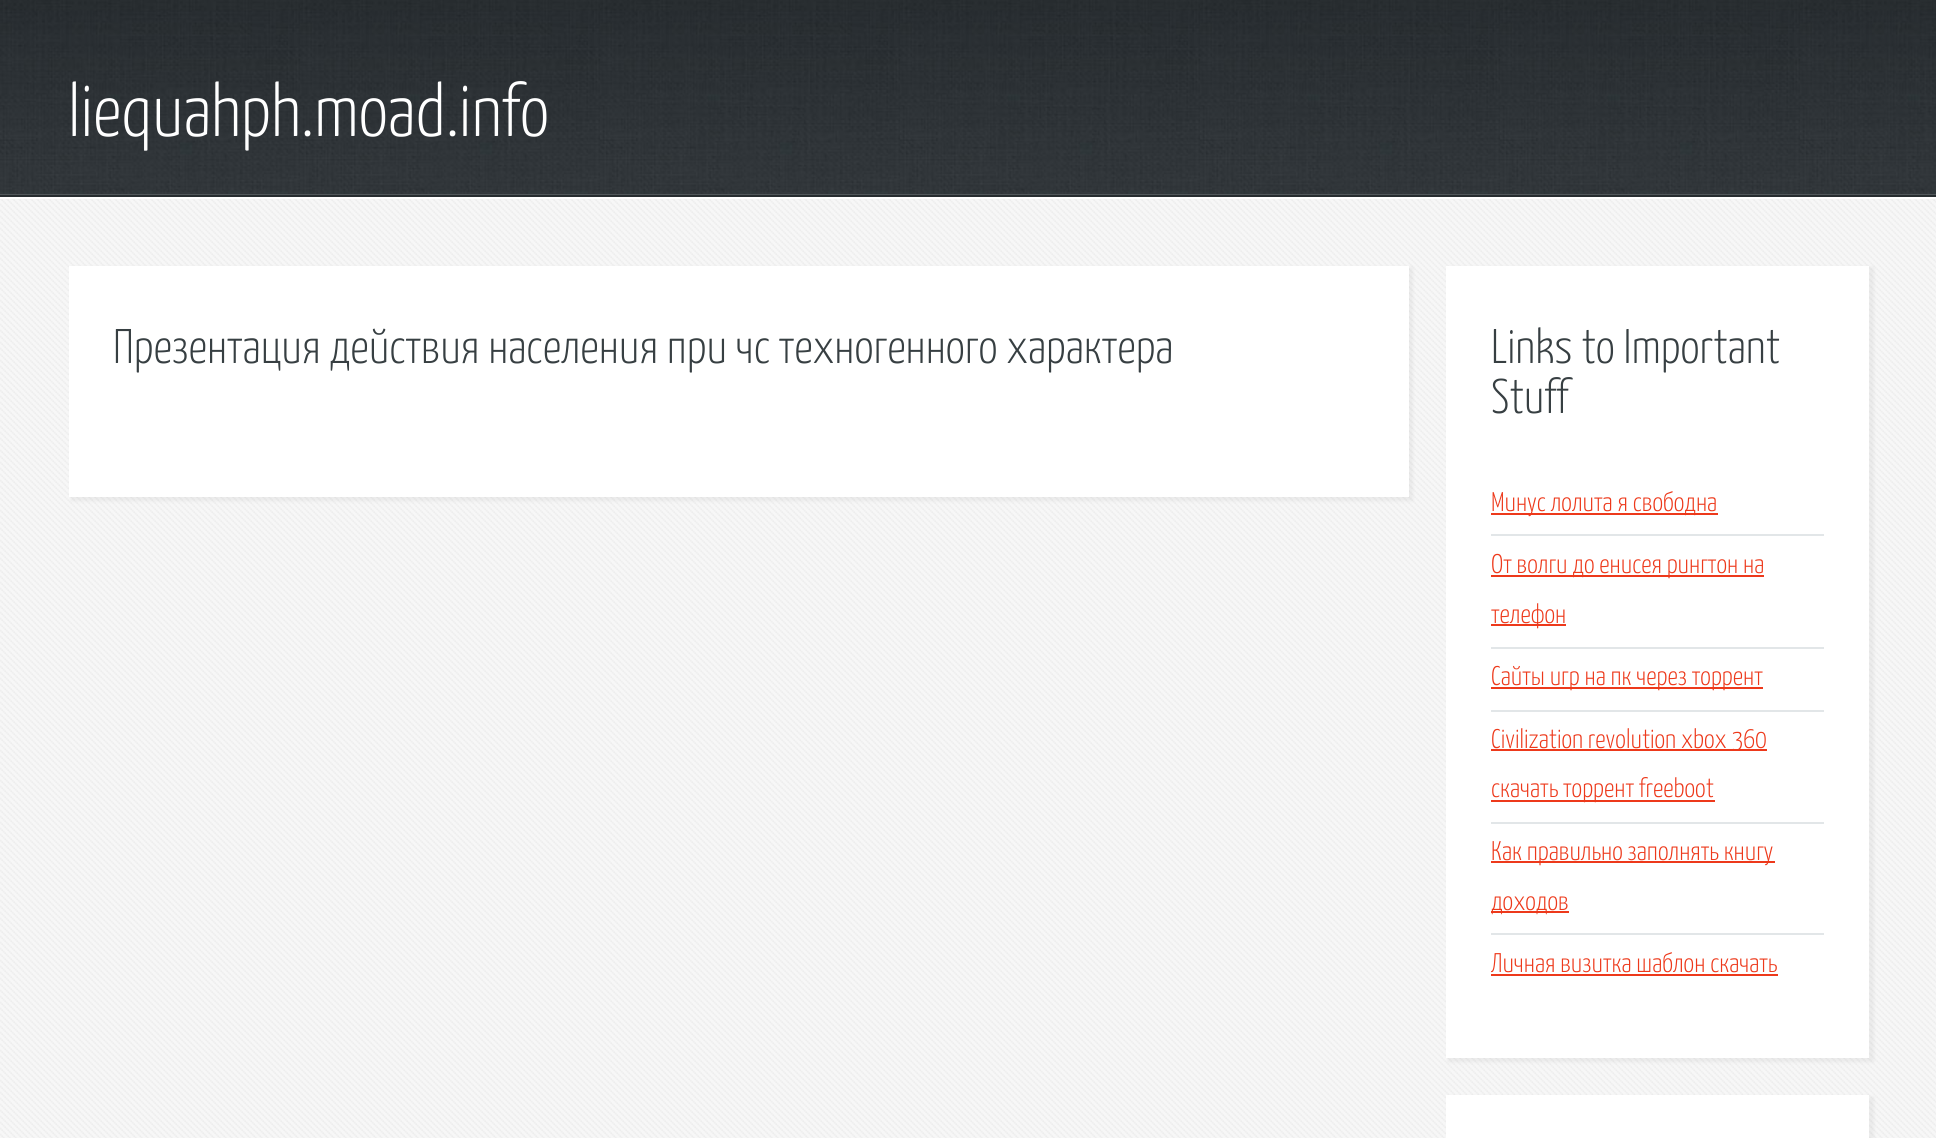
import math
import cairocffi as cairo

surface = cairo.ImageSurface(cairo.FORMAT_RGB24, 1936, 1138)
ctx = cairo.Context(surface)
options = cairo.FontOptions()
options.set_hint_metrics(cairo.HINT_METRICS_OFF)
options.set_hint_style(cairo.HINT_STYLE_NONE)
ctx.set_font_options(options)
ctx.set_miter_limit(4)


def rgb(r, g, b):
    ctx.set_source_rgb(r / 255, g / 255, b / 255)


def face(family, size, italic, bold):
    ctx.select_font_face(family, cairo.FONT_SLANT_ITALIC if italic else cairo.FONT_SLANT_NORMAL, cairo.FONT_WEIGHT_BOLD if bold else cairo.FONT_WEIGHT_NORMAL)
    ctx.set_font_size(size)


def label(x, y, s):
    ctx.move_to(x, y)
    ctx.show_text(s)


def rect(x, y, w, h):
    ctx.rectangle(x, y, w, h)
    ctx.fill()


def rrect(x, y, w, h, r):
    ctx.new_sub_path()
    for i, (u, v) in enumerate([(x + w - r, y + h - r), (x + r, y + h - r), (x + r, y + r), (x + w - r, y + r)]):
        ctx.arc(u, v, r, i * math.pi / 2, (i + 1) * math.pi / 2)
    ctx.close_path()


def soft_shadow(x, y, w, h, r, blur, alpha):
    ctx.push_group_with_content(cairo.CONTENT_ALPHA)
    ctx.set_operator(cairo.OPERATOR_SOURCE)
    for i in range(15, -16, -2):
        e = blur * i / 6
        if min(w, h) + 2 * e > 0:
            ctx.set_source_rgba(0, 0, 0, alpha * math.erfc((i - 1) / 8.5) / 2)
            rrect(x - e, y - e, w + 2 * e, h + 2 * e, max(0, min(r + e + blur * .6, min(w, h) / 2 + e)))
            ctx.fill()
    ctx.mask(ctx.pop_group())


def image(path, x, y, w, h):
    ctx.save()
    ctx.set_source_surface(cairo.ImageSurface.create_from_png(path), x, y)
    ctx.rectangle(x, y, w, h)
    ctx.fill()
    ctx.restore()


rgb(247, 247, 247)
ctx.paint()
image('image0.png', 0, 0, 1936, 194)
rgb(81, 87, 90)
rect(0, 194, 1936, 1)
rgb(39, 45, 48)
rect(0, 195, 1936, 2)
face('Yanone Kaffeesatz Light', 74.25, 0, 0)
rgb(255, 255, 255)
label(68, 136, 'liequahph.moad.info')
image('image1.png', 0, 199, 1936, 939)
rect(0, 197, 1936, 2)
rgb(128, 128, 128)
soft_shadow(71, 267, 1342, 234, 0, 1.5, 0.1)
rgb(255, 255, 255)
rect(69, 266, 1340, 231)
face('Yanone Kaffeesatz Light', 48.6, 0, 0)
rgb(55, 63, 66)
label(113, 363, 'Презентация действия населения при чс техногенного характера')
rgb(128, 128, 128)
soft_shadow(1448, 267, 426, 795, 0, 1.5, 0.1)
rgb(255, 255, 255)
rect(1446, 266, 423, 792)
rgb(55, 63, 66)
label(1491, 363, 'Links to Important')
label(1491, 413, 'Stuff')
rgb(226, 230, 232)
rect(1491, 534, 333, 2)
rgb(237, 57, 27)
rect(1491, 513, 227, 2)
face('Yanone Kaffeesatz Light', 27, 0, 0)
label(1491, 511, 'Минус лолита я свободна')
rgb(226, 230, 232)
rect(1491, 647, 333, 2)
rgb(237, 57, 27)
rect(1491, 575, 273, 2)
label(1491, 573, 'От волги до енисея рингтон на')
rect(1491, 624, 75, 2)
label(1491, 623, 'телефон')
rgb(226, 230, 232)
rect(1491, 710, 333, 2)
rgb(237, 57, 27)
rect(1491, 687, 272, 2)
label(1491, 685, 'Сайты игр на пк через торрент')
rgb(226, 230, 232)
rect(1491, 822, 333, 2)
rgb(237, 57, 27)
rect(1491, 749, 276, 2)
label(1491, 748, 'Civilization revolution xbox 360')
rect(1491, 800, 224, 2)
label(1491, 797, 'скачать торрент freeboot')
rgb(226, 230, 232)
rect(1491, 933, 333, 2)
rgb(237, 57, 27)
rect(1491, 861, 284, 2)
label(1491, 860, 'Как правильно заполнять книгу')
rect(1491, 911, 78, 2)
label(1491, 910, 'доходов')
label(1491, 972, 'Личная визитка шаблон скачать')
rect(1491, 974, 287, 2)
rgb(128, 128, 128)
soft_shadow(1448, 1097, 426, 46, 0, 1.5, 0.1)
rgb(255, 255, 255)
rect(1446, 1095, 423, 43)
surface.write_to_png('render.png')
